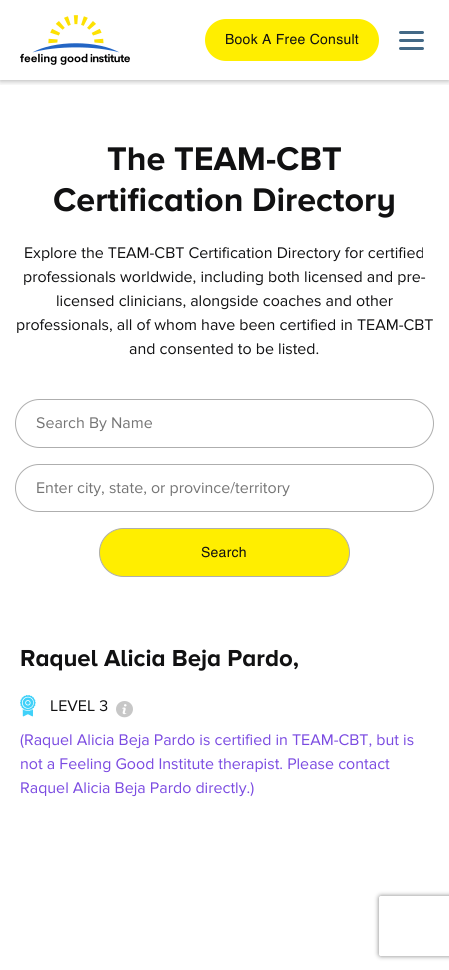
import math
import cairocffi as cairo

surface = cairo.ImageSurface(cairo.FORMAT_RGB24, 449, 970)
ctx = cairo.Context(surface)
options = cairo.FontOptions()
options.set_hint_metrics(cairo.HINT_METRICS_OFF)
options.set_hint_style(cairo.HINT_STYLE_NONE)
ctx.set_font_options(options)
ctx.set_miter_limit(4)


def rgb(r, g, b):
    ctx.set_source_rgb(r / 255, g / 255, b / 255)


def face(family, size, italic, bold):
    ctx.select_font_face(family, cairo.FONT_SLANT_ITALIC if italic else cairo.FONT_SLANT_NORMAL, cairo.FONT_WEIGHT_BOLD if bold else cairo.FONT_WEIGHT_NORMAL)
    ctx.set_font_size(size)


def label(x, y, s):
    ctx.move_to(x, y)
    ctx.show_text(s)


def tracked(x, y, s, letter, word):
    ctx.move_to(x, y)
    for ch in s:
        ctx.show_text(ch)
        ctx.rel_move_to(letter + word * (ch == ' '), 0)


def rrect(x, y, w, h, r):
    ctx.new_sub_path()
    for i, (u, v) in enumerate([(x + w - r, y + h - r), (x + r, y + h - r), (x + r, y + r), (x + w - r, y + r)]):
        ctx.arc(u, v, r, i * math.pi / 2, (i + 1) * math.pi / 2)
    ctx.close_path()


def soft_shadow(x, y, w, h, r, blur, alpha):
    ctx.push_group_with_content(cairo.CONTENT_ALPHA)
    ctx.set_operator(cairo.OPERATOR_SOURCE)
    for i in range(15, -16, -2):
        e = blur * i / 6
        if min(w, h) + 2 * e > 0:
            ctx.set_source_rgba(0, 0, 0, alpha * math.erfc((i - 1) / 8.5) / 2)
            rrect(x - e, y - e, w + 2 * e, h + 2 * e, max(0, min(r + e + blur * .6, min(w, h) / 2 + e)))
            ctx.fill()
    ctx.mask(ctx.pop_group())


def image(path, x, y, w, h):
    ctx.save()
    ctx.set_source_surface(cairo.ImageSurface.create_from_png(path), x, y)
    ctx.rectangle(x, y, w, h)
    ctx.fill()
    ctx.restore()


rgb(255, 255, 255)
ctx.paint()
ctx.save()
ctx.rectangle(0, 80, 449, 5)
ctx.clip()
rgb(0, 0, 0)
soft_shadow(0, 1, 449, 80, 0, 3, 0.3)
ctx.restore()
image('image0.png', 20, 15, 110, 50)
rgb(255, 238, 0)
rrect(205, 19, 174, 42, 21)
ctx.fill()
face('Helvetica', 14, 0, 0)
rgb(17, 17, 18)
tracked(225, 44, 'Book A Free Consult', 0.25, 0)
rgb(67, 105, 134)
rrect(399, 31, 25, 3, 1.5)
ctx.fill()
rrect(399, 39, 25, 3, 1.5)
ctx.fill()
rrect(399, 47, 25, 3, 1.5)
ctx.fill()
face('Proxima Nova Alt', 34, 0, 1)
rgb(17, 17, 18)
label(107, 170, 'The TEAM-CBT')
label(53, 211, 'Certification Directory')
face('Proxima Nova', 16, 0, 0)
label(24, 258, 'Explore the TEAM-CBT Certification Directory for certified')
label(23, 282, 'professionals worldwide, including both licensed and pre-')
label(56, 306, 'licensed clinicians, alongside coaches and other')
label(16, 330, 'professionals, all of whom have been certified in TEAM-CBT')
label(129, 354, 'and consented to be listed.')
rrect(15.5, 399.5, 418, 48, 24)
rgb(174, 174, 174)
ctx.set_line_width(1)
ctx.stroke()
rgb(117, 117, 117)
label(36, 428, 'Search By Name')
rrect(15.5, 464.5, 418, 47, 23.5)
rgb(174, 174, 174)
ctx.stroke()
rgb(117, 117, 117)
label(36, 493, 'Enter city, state, or province/territory')
rgb(255, 238, 0)
rrect(99.5, 528.5, 250, 48, 24)
ctx.fill_preserve()
rgb(174, 174, 174)
ctx.stroke()
face('Helvetica', 14, 0, 0)
rgb(17, 17, 18)
tracked(201, 557, 'Search', 0.25, 0)
face('Proxima Nova Alt', 24, 0, 1)
label(20, 666, 'Raquel Alicia Beja Pardo,')
image('image1.png', 20, 695, 16, 22)
face('Proxima Nova', 16, 0, 0)
label(50, 711, 'LEVEL 3')
image('image2.png', 116, 701, 17, 17)
rgb(122, 74, 225)
label(20, 745, '(Raquel Alicia Beja Pardo is certified in TEAM-CBT, but is')
label(20, 769, 'not a Feeling Good Institute therapist. Please contact')
label(20, 793, 'Raquel Alicia Beja Pardo directly.)')
ctx.save()
ctx.set_fill_rule(cairo.FILL_RULE_EVEN_ODD)
ctx.new_path()
ctx.move_to(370, 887)
ctx.line_to(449, 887)
ctx.line_to(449, 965)
ctx.line_to(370, 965)
ctx.close_path()
ctx.move_to(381, 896)
ctx.line_to(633, 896)
ctx.curve_to(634, 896, 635, 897, 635, 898)
ctx.line_to(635, 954)
ctx.curve_to(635, 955, 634, 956, 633, 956)
ctx.line_to(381, 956)
ctx.curve_to(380, 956, 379, 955, 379, 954)
ctx.line_to(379, 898)
ctx.curve_to(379, 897, 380, 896, 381, 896)
ctx.close_path()
ctx.clip()
rgb(128, 128, 128)
soft_shadow(379, 896, 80, 60, 2, 2.5, 1)
ctx.restore()
surface.write_to_png('render.png')
